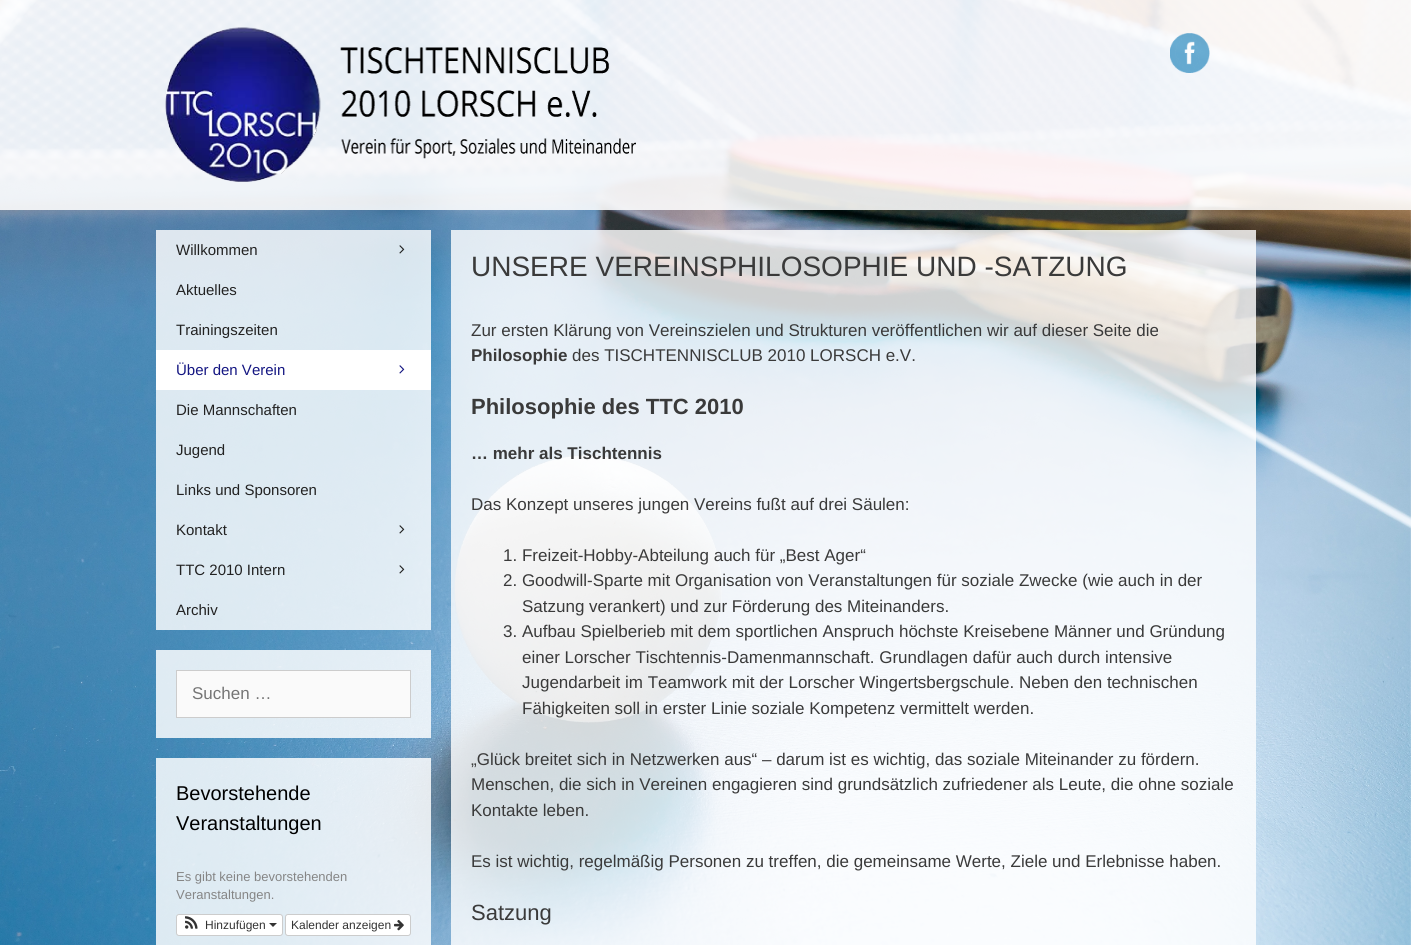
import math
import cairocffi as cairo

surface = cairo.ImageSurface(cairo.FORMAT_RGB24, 1411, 945)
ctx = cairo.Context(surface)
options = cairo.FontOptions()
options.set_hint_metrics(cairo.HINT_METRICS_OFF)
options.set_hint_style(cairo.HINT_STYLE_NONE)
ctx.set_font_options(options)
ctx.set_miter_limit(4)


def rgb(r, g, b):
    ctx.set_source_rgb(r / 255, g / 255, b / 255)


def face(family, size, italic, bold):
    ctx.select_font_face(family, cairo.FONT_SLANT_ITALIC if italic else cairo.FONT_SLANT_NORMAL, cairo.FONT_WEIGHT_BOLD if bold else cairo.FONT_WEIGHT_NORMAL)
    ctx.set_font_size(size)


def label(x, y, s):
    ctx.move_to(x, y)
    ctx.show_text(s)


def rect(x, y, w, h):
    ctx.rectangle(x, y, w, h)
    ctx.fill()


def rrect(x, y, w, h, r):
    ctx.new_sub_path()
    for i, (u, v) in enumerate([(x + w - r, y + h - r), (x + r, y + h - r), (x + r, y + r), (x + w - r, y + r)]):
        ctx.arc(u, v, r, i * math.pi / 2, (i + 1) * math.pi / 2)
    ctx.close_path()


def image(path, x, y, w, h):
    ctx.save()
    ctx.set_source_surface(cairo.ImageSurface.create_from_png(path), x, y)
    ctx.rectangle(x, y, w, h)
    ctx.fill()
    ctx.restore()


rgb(255, 255, 255)
ctx.paint()
image('image0.png', 0, 0, 1411, 945)
ctx.set_source_rgba(1, 1, 1, 0.87)
rect(0, 0, 1411, 210)
image('image1.png', 165, 27, 471, 155)
image('image2.png', 1170, 33, 40, 40)
ctx.set_source_rgba(1, 1, 1, 0.81)
rect(156, 230, 275, 400)
face('Liberation Sans', 15, 0, 0)
rgb(34, 34, 34)
label(176, 255, 'Willkommen')
image('image3.png', 399, 245, 6, 9)
label(176, 295, 'Aktuelles')
label(176, 335, 'Trainingszeiten')
rgb(255, 255, 255)
rect(156, 350, 275, 40)
rgb(20, 22, 130)
label(176, 375, 'Über den Verein')
image('image4.png', 399, 365, 6, 9)
rgb(34, 34, 34)
label(176, 415, 'Die Mannschaften')
label(176, 455, 'Jugend')
label(176, 495, 'Links und Sponsoren')
label(176, 535, 'Kontakt')
image('image5.png', 399, 525, 6, 9)
label(176, 575, 'TTC 2010 Intern')
image('image6.png', 399, 565, 6, 9)
label(176, 615, 'Archiv')
ctx.set_source_rgba(1, 1, 1, 0.83)
rect(156, 650, 275, 88)
rgb(250, 250, 250)
ctx.rectangle(176.5, 670.5, 234, 47)
ctx.fill_preserve()
rgb(204, 204, 204)
ctx.set_line_width(1)
ctx.stroke()
face('Liberation Sans', 17, 0, 0)
rgb(117, 117, 117)
label(192, 699, 'Suchen …')
ctx.set_source_rgba(1, 1, 1, 0.83)
rect(156, 758, 275, 187)
face('Liberation Sans', 20, 0, 0)
rgb(0, 0, 0)
label(176, 800, 'Bevorstehende')
label(176, 830, 'Veranstaltungen')
face('Liberation Sans', 13, 0, 0)
rgb(133, 133, 133)
label(176, 881, 'Es gibt keine bevorstehenden')
label(176, 899, 'Veranstaltungen.')
rgb(255, 255, 255)
rrect(176.5, 914.5, 106, 21, 2.5)
ctx.fill_preserve()
rgb(204, 204, 204)
ctx.stroke()
image('image7.png', 185, 916, 13, 13)
face('Liberation Sans', 12, 0, 0)
rgb(51, 51, 51)
label(205, 929, 'Hinzufügen')
ctx.new_path()
ctx.move_to(269, 923)
ctx.line_to(277, 923)
ctx.line_to(273, 927)
ctx.close_path()
ctx.fill()
rgb(255, 255, 255)
rrect(285.5, 914.5, 125, 21, 2.5)
ctx.fill_preserve()
rgb(204, 204, 204)
ctx.stroke()
rgb(51, 51, 51)
label(291, 929, 'Kalender anzeigen')
image('image8.png', 394, 920, 10, 11)
ctx.set_source_rgba(1, 1, 1, 0.81)
rect(451, 230, 805, 715)
face('Liberation Sans', 28, 0, 0)
rgb(58, 58, 58)
label(471, 276, 'UNSERE VEREINSPHILOSOPHIE UND -SATZUNG')
face('Liberation Sans', 17, 0, 0)
label(471, 336, 'Zur ersten Klärung von Vereinszielen und Strukturen veröffentlichen wir auf dieser Seite die')
face('Liberation Sans', 17, 0, 1)
label(471, 361, 'Philosophie')
face('Liberation Sans', 17, 0, 0)
label(572, 361, 'des TISCHTENNISCLUB 2010 LORSCH e.V.')
face('Liberation Sans', 22, 0, 1)
label(471, 414, 'Philosophie des TTC 2010')
face('Liberation Sans', 17, 0, 1)
label(471, 459, '… mehr als Tischtennis')
face('Liberation Sans', 17, 0, 0)
label(471, 510, 'Das Konzept unseres jungen Vereins fußt auf drei Säulen:')
label(503, 561, '1. Freizeit-Hobby-Abteilung auch für „Best Ager“')
label(503, 586, '2. Goodwill-Sparte mit Organisation von Veranstaltungen für soziale Zwecke (wie auch in der')
label(522, 612, 'Satzung verankert) und zur Förderung des Miteinanders.')
label(503, 637, '3. Aufbau Spielberieb mit dem sportlichen Anspruch höchste Kreisebene Männer und Gründung')
label(522, 663, 'einer Lorscher Tischtennis-Damenmannschaft. Grundlagen dafür auch durch intensive')
label(522, 688, 'Jugendarbeit im Teamwork mit der Lorscher Wingertsbergschule. Neben den technischen')
label(522, 714, 'Fähigkeiten soll in erster Linie soziale Kompetenz vermittelt werden.')
label(471, 765, '„Glück breitet sich in Netzwerken aus“ – darum ist es wichtig, das soziale Miteinander zu fördern.')
label(471, 790, 'Menschen, die sich in Vereinen engagieren sind grundsätzlich zufriedener als Leute, die ohne soziale')
label(471, 816, 'Kontakte leben.')
label(471, 867, 'Es ist wichtig, regelmäßig Personen zu treffen, die gemeinsame Werte, Ziele und Erlebnisse haben.')
face('Liberation Sans', 22, 0, 0)
label(471, 920, 'Satzung')
surface.write_to_png('render.png')
